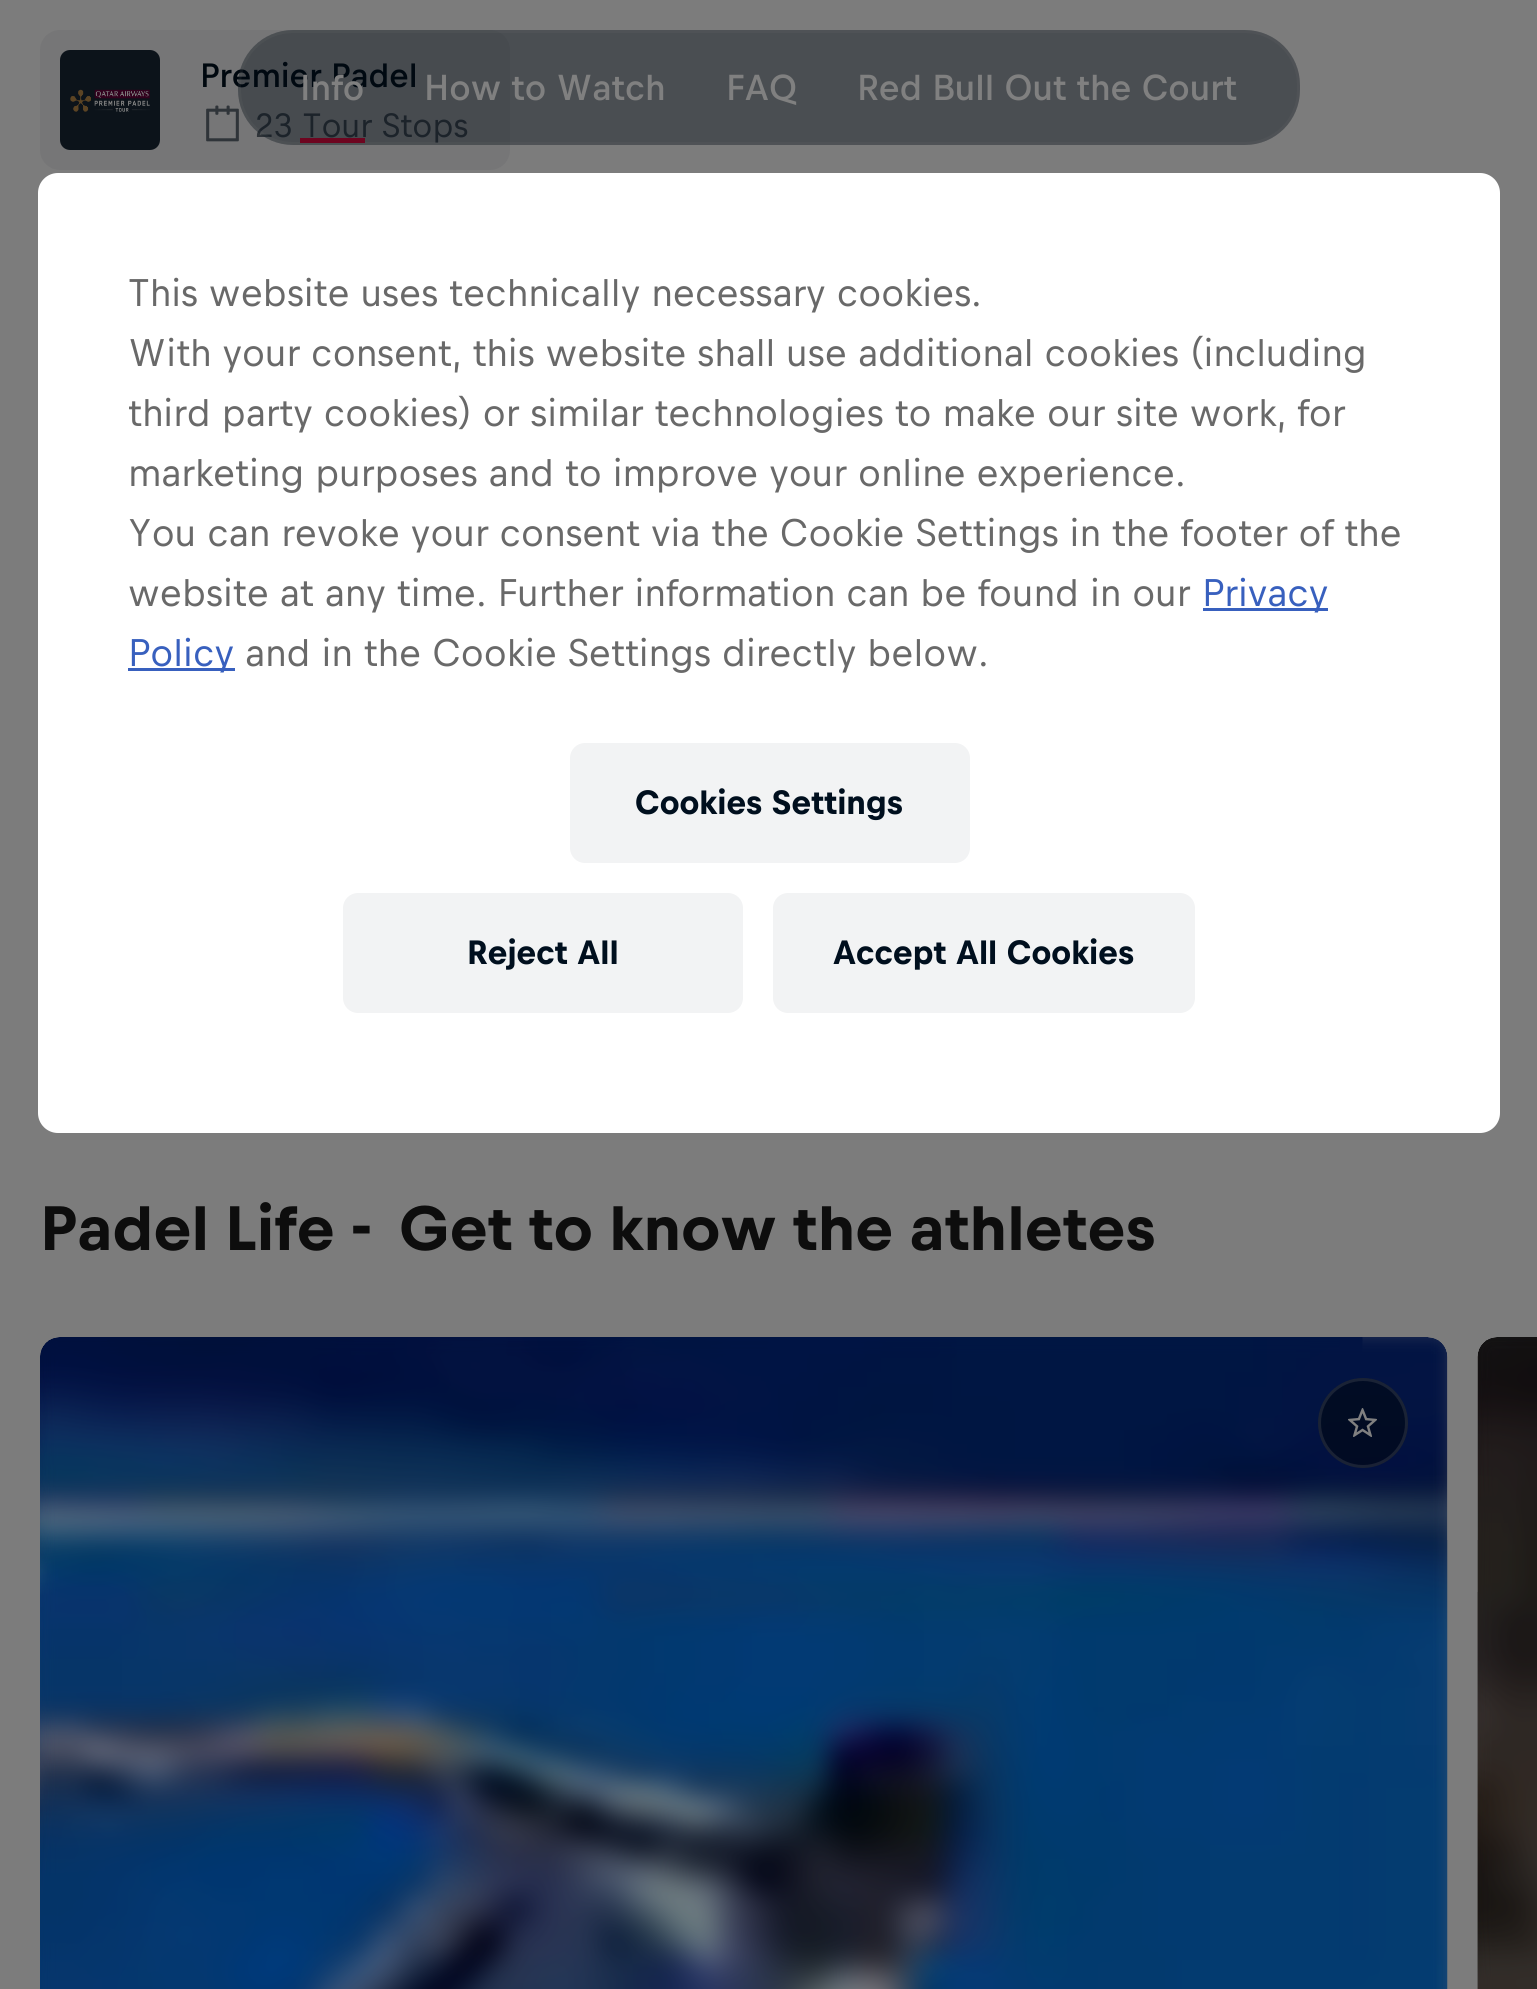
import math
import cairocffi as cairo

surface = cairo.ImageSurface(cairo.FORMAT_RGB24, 1537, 1989)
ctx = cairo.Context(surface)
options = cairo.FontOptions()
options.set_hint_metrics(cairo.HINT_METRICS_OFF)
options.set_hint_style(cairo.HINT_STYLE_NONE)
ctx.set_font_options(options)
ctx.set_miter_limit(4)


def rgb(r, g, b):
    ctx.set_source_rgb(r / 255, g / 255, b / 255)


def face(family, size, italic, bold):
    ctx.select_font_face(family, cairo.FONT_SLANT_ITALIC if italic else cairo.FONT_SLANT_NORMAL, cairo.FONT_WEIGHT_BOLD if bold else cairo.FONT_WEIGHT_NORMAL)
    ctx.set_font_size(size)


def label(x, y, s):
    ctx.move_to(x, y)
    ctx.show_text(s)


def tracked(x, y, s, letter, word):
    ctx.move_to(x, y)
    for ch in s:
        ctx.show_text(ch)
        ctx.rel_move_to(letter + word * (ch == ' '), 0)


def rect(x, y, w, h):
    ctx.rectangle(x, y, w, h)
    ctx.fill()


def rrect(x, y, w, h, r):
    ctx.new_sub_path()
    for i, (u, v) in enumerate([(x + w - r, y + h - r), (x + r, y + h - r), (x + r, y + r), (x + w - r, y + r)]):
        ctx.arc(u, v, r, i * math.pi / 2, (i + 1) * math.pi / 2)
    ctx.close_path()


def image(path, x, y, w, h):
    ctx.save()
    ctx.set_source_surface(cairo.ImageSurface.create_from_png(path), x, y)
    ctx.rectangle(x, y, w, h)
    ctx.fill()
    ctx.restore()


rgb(124, 124, 124)
ctx.paint()
rgb(118, 118, 119)
rrect(40, 30, 470, 140, 20)
ctx.fill()
rgb(12, 19, 26)
rrect(60, 50, 100, 100, 10)
ctx.fill()
image('image0.png', 70, 89, 80, 23)
face('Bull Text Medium', 35, 0, 0)
rgb(0, 8, 15)
label(200, 87, 'Premier Padel')
image('image1.png', 206, 105, 33, 37)
face('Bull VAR', 35, 0, 0)
rgb(47, 52, 57)
label(255, 137, '23 Tour Stops')
ctx.set_source_rgba(0, 0.043, 0.086, 0.4)
rrect(238, 30, 1062, 115, 55)
ctx.fill()
rrect(239.5, 31.5, 1059, 112, 53.5)
ctx.set_source_rgba(0.502, 0.502, 0.502, 0.1)
ctx.set_line_width(3)
ctx.stroke()
rgb(110, 5, 32)
rect(300, 138, 65, 5)
face('Bull Text Medium', 37.5, 0, 0)
rgb(128, 128, 128)
label(300, 100, 'Info')
label(424, 100, 'How to Watch')
label(726, 100, 'FAQ')
label(857, 100, 'Red Bull Out the Court')
face('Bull', 65, 0, 1)
rgb(13, 13, 13)
tracked(40, 1250, 'Padel Life -', 0, -1.5)
tracked(399, 1250, 'Get to know the athletes', 0, -1.5)
image('image2.png', 40, 1337, 1323, 652)
image('image3.png', 40, 1337, 1408, 652)
ctx.set_source_rgba(0, 0.031, 0.059, 0.6)
ctx.arc(1363, 1423, 45, 0, 2 * math.pi)
ctx.fill()
ctx.arc(1363, 1423, 43.5, 0, 2 * math.pi)
ctx.set_source_rgba(0.502, 0.502, 0.502, 0.2)
ctx.stroke()
image('image4.png', 1348, 1408, 29, 29)
image('image5.png', 1477, 1337, 60, 652)
image('image6.png', 1477, 1337, 60, 652)
rgb(255, 255, 255)
rrect(38, 173, 1462, 960, 20)
ctx.fill()
face('Bull Text', 40, 0, 0)
rgb(105, 105, 105)
label(128, 306, 'This website uses technically necessary cookies.')
label(128, 366, 'With your consent, this website shall use additional cookies (including')
label(128, 426, 'third party cookies) or similar technologies to make our site work, for')
label(128, 486, 'marketing purposes and to improve your online experience.')
label(128, 546, 'You can revoke your consent via the Cookie Settings in the footer of the')
label(128, 606, 'website at any time. Further information can be found in our')
rgb(56, 96, 190)
rect(1203, 608, 125, 3)
label(1202, 606, 'Privacy')
rect(128, 668, 107, 3)
label(128, 666, 'Policy')
rgb(105, 105, 105)
label(245, 666, 'and in the Cookie Settings directly below.')
rgb(242, 243, 244)
rrect(570, 743, 400, 120, 15)
ctx.fill()
face('Bull Text', 35, 0, 1)
rgb(0, 15, 30)
label(635, 814, 'Cookies Settings')
rgb(242, 243, 244)
rrect(343, 893, 400, 120, 15)
ctx.fill()
rgb(0, 15, 30)
label(467, 964, 'Reject All')
rgb(242, 243, 244)
rrect(773, 893, 422, 120, 15)
ctx.fill()
rgb(0, 15, 30)
label(833, 964, 'Accept All Cookies')
surface.write_to_png('render.png')
